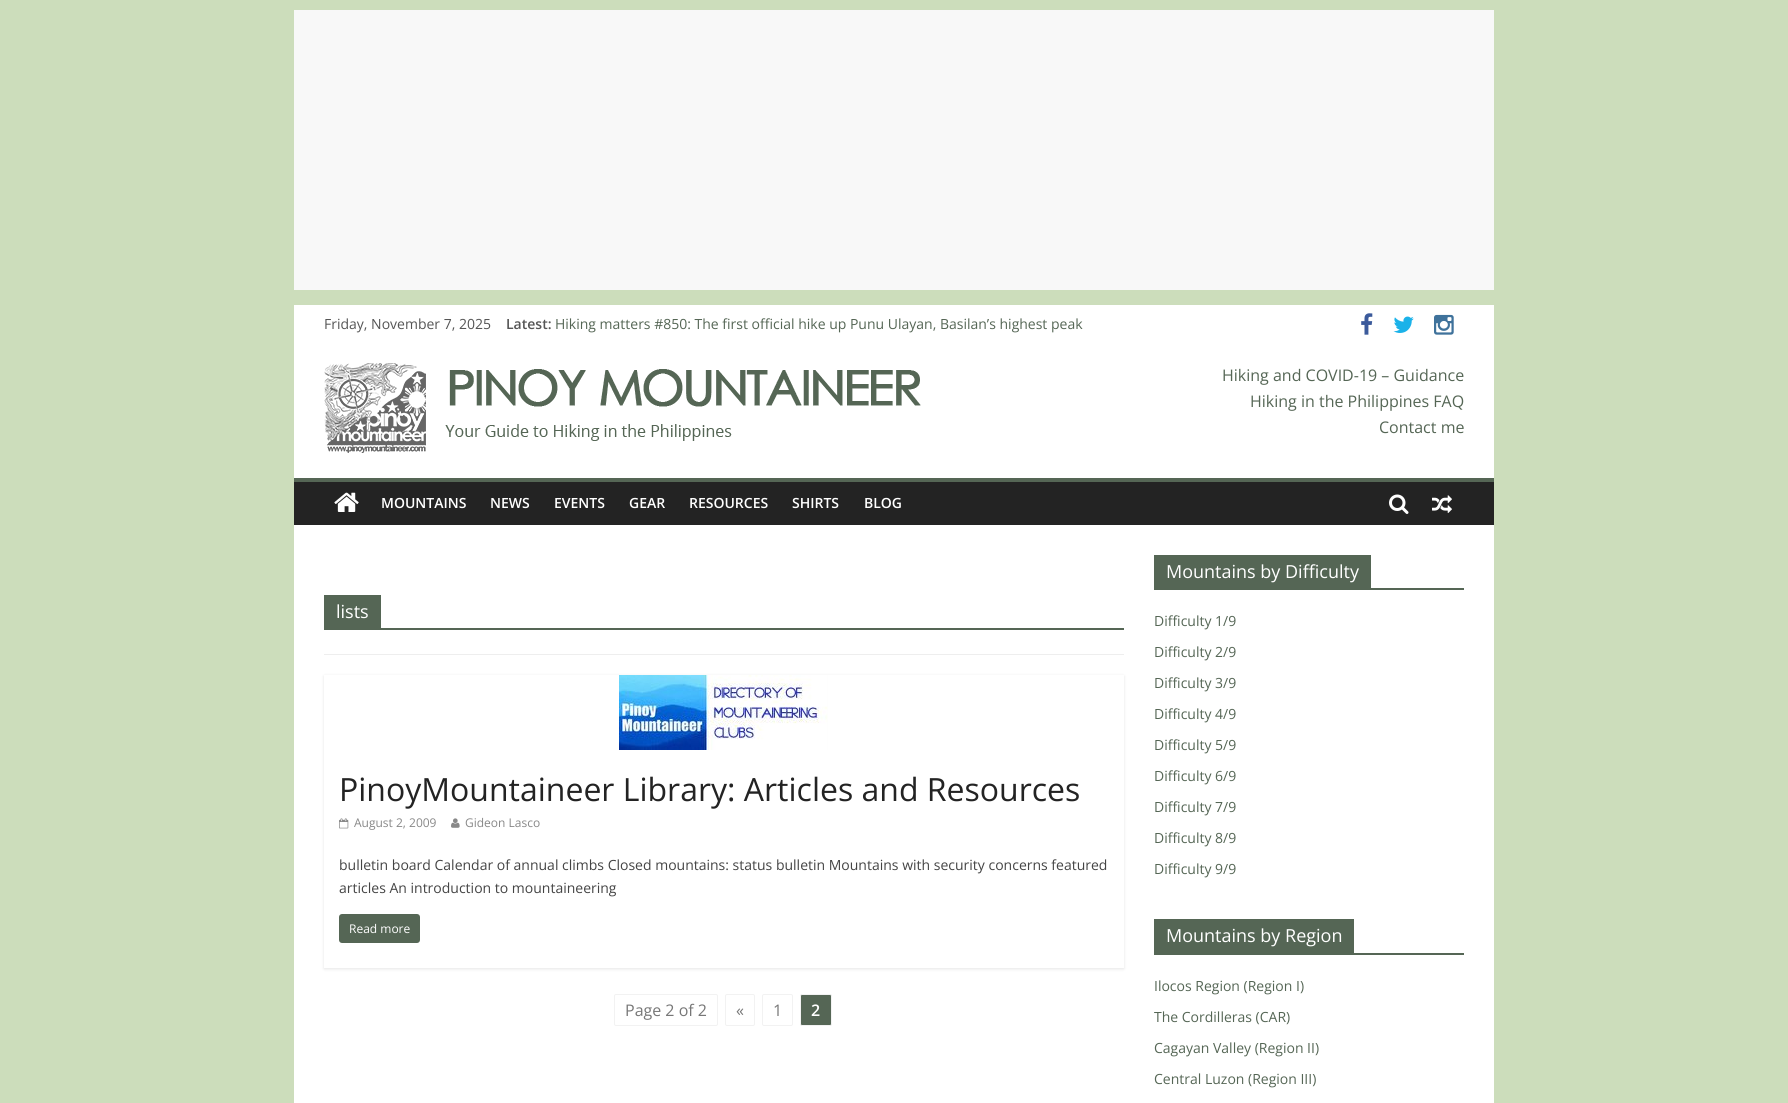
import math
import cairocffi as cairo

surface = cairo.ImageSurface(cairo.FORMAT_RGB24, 1788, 1103)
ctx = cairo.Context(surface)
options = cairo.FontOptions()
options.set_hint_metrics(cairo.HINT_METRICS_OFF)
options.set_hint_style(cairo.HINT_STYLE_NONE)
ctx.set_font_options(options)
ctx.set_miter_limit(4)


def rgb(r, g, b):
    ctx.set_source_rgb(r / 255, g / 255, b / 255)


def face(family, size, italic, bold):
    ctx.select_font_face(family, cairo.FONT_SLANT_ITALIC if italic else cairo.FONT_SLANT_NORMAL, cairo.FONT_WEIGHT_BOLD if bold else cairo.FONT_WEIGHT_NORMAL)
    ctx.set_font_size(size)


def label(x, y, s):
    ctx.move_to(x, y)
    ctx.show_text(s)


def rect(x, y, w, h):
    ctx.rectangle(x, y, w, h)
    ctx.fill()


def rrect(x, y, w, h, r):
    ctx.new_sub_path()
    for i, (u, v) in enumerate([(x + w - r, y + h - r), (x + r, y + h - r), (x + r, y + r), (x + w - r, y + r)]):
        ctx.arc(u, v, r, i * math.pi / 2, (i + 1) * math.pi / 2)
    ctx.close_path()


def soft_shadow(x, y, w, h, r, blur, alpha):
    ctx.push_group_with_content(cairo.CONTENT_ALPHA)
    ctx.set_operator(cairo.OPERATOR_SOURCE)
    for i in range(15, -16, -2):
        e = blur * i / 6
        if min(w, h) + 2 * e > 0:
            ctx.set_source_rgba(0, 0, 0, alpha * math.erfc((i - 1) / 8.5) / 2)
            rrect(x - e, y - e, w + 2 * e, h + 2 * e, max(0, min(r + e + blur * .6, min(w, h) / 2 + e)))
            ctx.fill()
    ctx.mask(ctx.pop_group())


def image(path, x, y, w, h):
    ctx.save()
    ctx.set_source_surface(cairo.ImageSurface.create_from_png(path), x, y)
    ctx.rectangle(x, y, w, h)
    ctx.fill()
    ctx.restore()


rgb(204, 221, 187)
ctx.paint()
rgb(248, 248, 248)
rect(294, 10, 1200, 280)
rgb(255, 255, 255)
rect(294, 305, 1200, 173)
face('Open Sans', 14, 0, 0)
rgb(85, 85, 85)
label(324, 329, 'Friday, November 7, 2025')
face('Open Sans SemiBold', 14, 0, 0)
label(506, 329, 'Latest:')
face('Open Sans', 14, 0, 0)
rgb(85, 102, 85)
label(555, 329, 'Hiking matters #850: The first official hike up Punu Ulayan, Basilan’s highest peak')
image('image0.png', 1361, 313, 12, 22)
image('image1.png', 1393, 316, 21, 17)
image('image2.png', 1434, 314, 20, 21)
image('image3.png', 324, 363, 597, 90)
face('Open Sans', 16, 0, 0)
label(1222, 381, 'Hiking and COVID-19 – Guidance')
label(1250, 407, 'Hiking in the Philippines FAQ')
label(1379, 433, 'Contact me')
rgb(35, 35, 35)
rect(294, 482, 1200, 43)
rgb(85, 102, 85)
rect(294, 478, 1200, 4)
image('image4.png', 334, 492, 25, 20)
face('Open Sans SemiBold', 14, 0, 0)
rgb(255, 255, 255)
label(381, 508, 'MOUNTAINS')
label(490, 508, 'NEWS')
label(554, 508, 'EVENTS')
label(629, 508, 'GEAR')
label(689, 508, 'RESOURCES')
label(792, 508, 'SHIRTS')
label(864, 508, 'BLOG')
image('image5.png', 1389, 494, 20, 20)
image('image6.png', 1432, 495, 20, 18)
rect(294, 525, 1200, 578)
rgb(238, 238, 238)
rect(324, 654, 800, 1)
rgb(85, 102, 85)
rect(324, 628, 800, 2)
rect(324, 595, 57, 33)
face('Open Sans', 18, 0, 0)
rgb(255, 255, 255)
label(336, 618, 'lists')
ctx.save()
ctx.set_fill_rule(cairo.FILL_RULE_EVEN_ODD)
ctx.new_path()
ctx.move_to(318, 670)
ctx.line_to(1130, 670)
ctx.line_to(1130, 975)
ctx.line_to(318, 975)
ctx.close_path()
ctx.move_to(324, 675)
ctx.line_to(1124, 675)
ctx.line_to(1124, 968)
ctx.line_to(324, 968)
ctx.close_path()
ctx.clip()
rgb(0, 0, 0)
soft_shadow(324, 676, 800, 293, 0, 1.5, 0.1)
ctx.restore()
image('image7.png', 619, 675, 209, 75)
face('Open Sans', 32, 0, 0)
rgb(35, 35, 35)
label(339, 801, 'PinoyMountaineer Library: Articles and Resources')
image('image8.png', 339, 818, 10, 11)
face('Open Sans', 12, 0, 0)
rgb(136, 136, 136)
label(354, 827, 'August 2, 2009')
image('image9.png', 451, 818, 9, 10)
label(465, 827, 'Gideon Lasco')
face('Open Sans', 14, 0, 0)
rgb(68, 68, 68)
label(339, 870, 'bulletin board Calendar of annual climbs Closed mountains: status bulletin Mountains with security concerns featured')
label(339, 893, 'articles An introduction to mountaineering')
rgb(85, 102, 85)
rrect(339, 914, 81, 29, 3)
ctx.fill()
face('Open Sans', 12, 0, 0)
rgb(255, 255, 255)
label(349, 933, 'Read more')
rrect(614.5, 994.5, 103, 31, 1.5)
rgb(242, 242, 242)
ctx.set_line_width(1)
ctx.stroke()
face('Open Sans', 16, 0, 0)
rgb(119, 119, 119)
label(625, 1016, 'Page 2 of 2')
rrect(725.5, 994.5, 29, 31, 1.5)
rgb(242, 242, 242)
ctx.stroke()
rgb(119, 119, 119)
label(736, 1016, '«')
rrect(762.5, 994.5, 30, 31, 1.5)
rgb(242, 242, 242)
ctx.stroke()
rgb(119, 119, 119)
label(773, 1016, '1')
rgb(85, 102, 85)
rrect(800.5, 994.5, 31, 31, 1.5)
ctx.fill_preserve()
rgb(242, 242, 242)
ctx.stroke()
face('Open Sans SemiBold', 16, 0, 0)
rgb(255, 255, 255)
label(811, 1016, '2')
rgb(85, 102, 85)
rect(1154, 588, 310, 2)
rect(1154, 555, 217, 33)
face('Open Sans', 18, 0, 0)
rgb(255, 255, 255)
label(1166, 578, 'Mountains by Difficulty')
face('Open Sans', 14, 0, 0)
rgb(85, 102, 85)
label(1154, 626, 'Difficulty 1/9')
label(1154, 657, 'Difficulty 2/9')
label(1154, 688, 'Difficulty 3/9')
label(1154, 719, 'Difficulty 4/9')
label(1154, 750, 'Difficulty 5/9')
label(1154, 781, 'Difficulty 6/9')
label(1154, 812, 'Difficulty 7/9')
label(1154, 843, 'Difficulty 8/9')
label(1154, 874, 'Difficulty 9/9')
rect(1154, 953, 310, 2)
rect(1154, 919, 200, 34)
face('Open Sans', 18, 0, 0)
rgb(255, 255, 255)
label(1166, 942, 'Mountains by Region')
face('Open Sans', 14, 0, 0)
rgb(85, 102, 85)
label(1154, 991, 'Ilocos Region (Region I)')
label(1154, 1022, 'The Cordilleras (CAR)')
label(1154, 1053, 'Cagayan Valley (Region II)')
label(1154, 1084, 'Central Luzon (Region III)')
surface.write_to_png('render.png')
